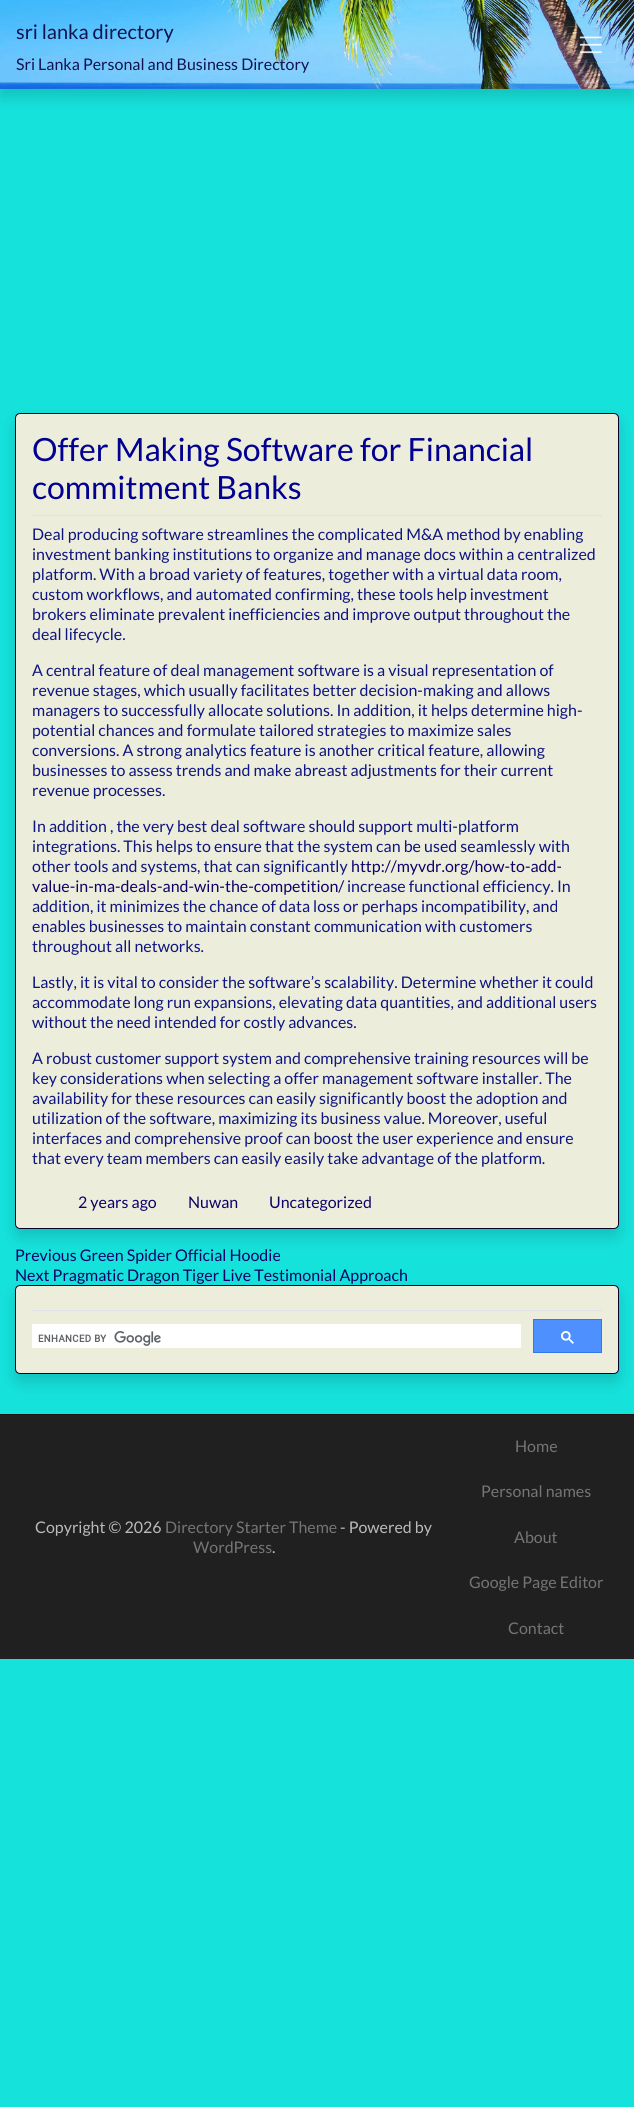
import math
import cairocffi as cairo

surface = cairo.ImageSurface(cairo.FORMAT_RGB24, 634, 2107)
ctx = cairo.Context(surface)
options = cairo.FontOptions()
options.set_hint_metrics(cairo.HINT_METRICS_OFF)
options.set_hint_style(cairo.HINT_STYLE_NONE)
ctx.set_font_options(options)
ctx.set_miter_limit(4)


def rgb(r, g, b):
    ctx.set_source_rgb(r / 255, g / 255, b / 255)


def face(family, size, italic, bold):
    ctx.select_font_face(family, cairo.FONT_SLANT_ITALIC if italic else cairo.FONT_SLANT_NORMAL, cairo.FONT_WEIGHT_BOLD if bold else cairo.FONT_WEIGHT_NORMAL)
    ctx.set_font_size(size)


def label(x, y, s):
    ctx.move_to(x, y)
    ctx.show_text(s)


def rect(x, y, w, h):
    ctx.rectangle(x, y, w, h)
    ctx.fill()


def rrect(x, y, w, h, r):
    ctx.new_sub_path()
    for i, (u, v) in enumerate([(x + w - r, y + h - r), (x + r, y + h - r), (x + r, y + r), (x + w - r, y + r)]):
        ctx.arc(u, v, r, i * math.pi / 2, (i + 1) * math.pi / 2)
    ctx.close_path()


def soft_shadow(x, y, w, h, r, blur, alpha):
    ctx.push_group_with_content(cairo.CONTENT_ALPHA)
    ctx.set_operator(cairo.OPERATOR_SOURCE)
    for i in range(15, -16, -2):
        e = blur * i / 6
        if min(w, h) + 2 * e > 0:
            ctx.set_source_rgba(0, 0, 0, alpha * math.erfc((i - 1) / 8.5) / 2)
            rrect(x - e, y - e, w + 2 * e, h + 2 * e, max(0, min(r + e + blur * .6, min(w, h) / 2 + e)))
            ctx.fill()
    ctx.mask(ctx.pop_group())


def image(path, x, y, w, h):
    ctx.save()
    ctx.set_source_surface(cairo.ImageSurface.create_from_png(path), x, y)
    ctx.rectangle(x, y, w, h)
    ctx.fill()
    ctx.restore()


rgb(22, 226, 220)
ctx.paint()
rgb(0, 0, 0)
soft_shadow(0, 8, 634, 89, 0, 8, 0.15)
image('image0.png', 0, 0, 634, 89)
face('Lato', 20, 0, 0)
rgb(18, 18, 81)
label(16, 39, 'sri lanka directory')
face('Lato', 16, 0, 0)
label(16, 70, 'Sri Lanka Personal and Business Directory')
rrect(564.5, 26.5, 53, 36, 3.5)
ctx.set_source_rgba(1, 1, 1, 0.1)
ctx.set_line_width(1)
ctx.stroke()
image('image1.png', 579, 36, 23, 18)
rgb(0, 0, 0)
soft_shadow(15, 421, 604, 816, 5, 8, 0.15)
rgb(237, 237, 220)
rrect(15.5, 413.5, 603, 815, 4.5)
ctx.fill_preserve()
rgb(14, 0, 45)
ctx.stroke()
rgb(222, 226, 230)
rect(32, 515, 570, 1)
face('Lato', 32, 0, 0)
rgb(2, 0, 145)
label(32, 461, 'Offer Making Software for Financial')
label(32, 499, 'commitment Banks')
face('Lato', 16, 0, 0)
rgb(14, 21, 127)
label(32, 540, 'Deal producing software streamlines the complicated M&A method by enabling')
label(32, 560, 'investment banking institutions to organize and manage docs within a centralized')
label(32, 580, 'platform. With a broad variety of features, together with a virtual data room,')
label(32, 600, 'custom workflows, and automated confirming, these tools help investment')
label(32, 620, 'brokers eliminate prevalent inefficiencies and improve output throughout the')
label(32, 640, 'deal lifecycle.')
label(32, 676, 'A central feature of deal management software is a visual representation of')
label(32, 696, 'revenue stages, which usually facilitates better decision-making and allows')
label(32, 716, 'managers to successfully allocate solutions. In addition, it helps determine high-')
label(32, 736, 'potential chances and formulate tailored strategies to maximize sales')
label(32, 756, 'conversions. A strong analytics feature is another critical feature, allowing')
label(32, 776, 'businesses to assess trends and make abreast adjustments for their current')
label(32, 796, 'revenue processes.')
label(32, 832, 'In addition , the very best deal software should support multi-platform')
label(32, 852, 'integrations. This helps to ensure that the system can be used seamlessly with')
label(32, 872, 'other tools and systems, that can significantly')
rgb(14, 2, 104)
label(351, 872, 'http://myvdr.org/how-to-add-')
label(32, 892, 'value-in-ma-deals-and-win-the-competition/')
rgb(14, 21, 127)
label(347, 892, 'increase functional efficiency. In')
label(32, 912, 'addition, it minimizes the chance of data loss or perhaps incompatibility, and')
label(32, 932, 'enables businesses to maintain constant communication with customers')
label(32, 952, 'throughout all networks.')
label(32, 988, 'Lastly, it is vital to consider the software’s scalability. Determine whether it could')
label(32, 1008, 'accommodate long run expansions, elevating data quantities, and additional users')
label(32, 1028, 'without the need intended for costly advances.')
label(32, 1064, 'A robust customer support system and comprehensive training resources will be')
label(32, 1084, 'key considerations when selecting a offer management software installer. The')
label(32, 1104, 'availability for these resources can easily significantly boost the adoption and')
label(32, 1124, 'utilization of the software, maximizing its business value. Moreover, useful')
label(32, 1144, 'interfaces and comprehensive proof can boost the user experience and ensure')
label(32, 1164, 'that every team members can easily easily take advantage of the platform.')
rgb(14, 2, 104)
label(78, 1208, '2 years ago')
label(188, 1208, 'Nuwan')
label(269, 1208, 'Uncategorized')
label(15, 1261, 'Previous Green Spider Official Hoodie')
label(15, 1281, 'Next Pragmatic Dragon Tiger Live Testimonial Approach')
rgb(0, 0, 0)
soft_shadow(15, 1293, 604, 89, 5, 8, 0.15)
rgb(237, 237, 220)
rrect(15.5, 1285.5, 603, 88, 4.5)
ctx.fill_preserve()
rgb(14, 0, 45)
ctx.stroke()
rgb(222, 226, 230)
rect(32, 1310, 570, 1)
rgb(255, 255, 255)
rect(32, 1324, 489, 24)
image('image2.png', 38, 1331, 123, 15)
rgb(77, 144, 254)
ctx.rectangle(533.5, 1319.5, 68, 33)
ctx.fill_preserve()
rgb(48, 121, 237)
ctx.stroke()
image('image3.png', 561, 1331, 13, 13)
rgb(32, 32, 32)
rect(0, 1415, 634, 244)
rgb(21, 21, 21)
rect(0, 1414, 634, 1)
rgb(187, 187, 187)
label(35, 1533, 'Copyright © 2026')
rgb(117, 117, 117)
label(165, 1533, 'Directory Starter Theme')
rgb(187, 187, 187)
label(340, 1533, '- Powered by')
rgb(117, 117, 117)
label(193, 1553, 'WordPress')
rgb(187, 187, 187)
label(272, 1553, '.')
rgb(117, 117, 117)
label(515, 1452, 'Home')
label(481, 1497, 'Personal names')
label(514, 1543, 'About')
label(469, 1588, 'Google Page Editor')
label(508, 1634, 'Contact')
surface.write_to_png('render.png')
